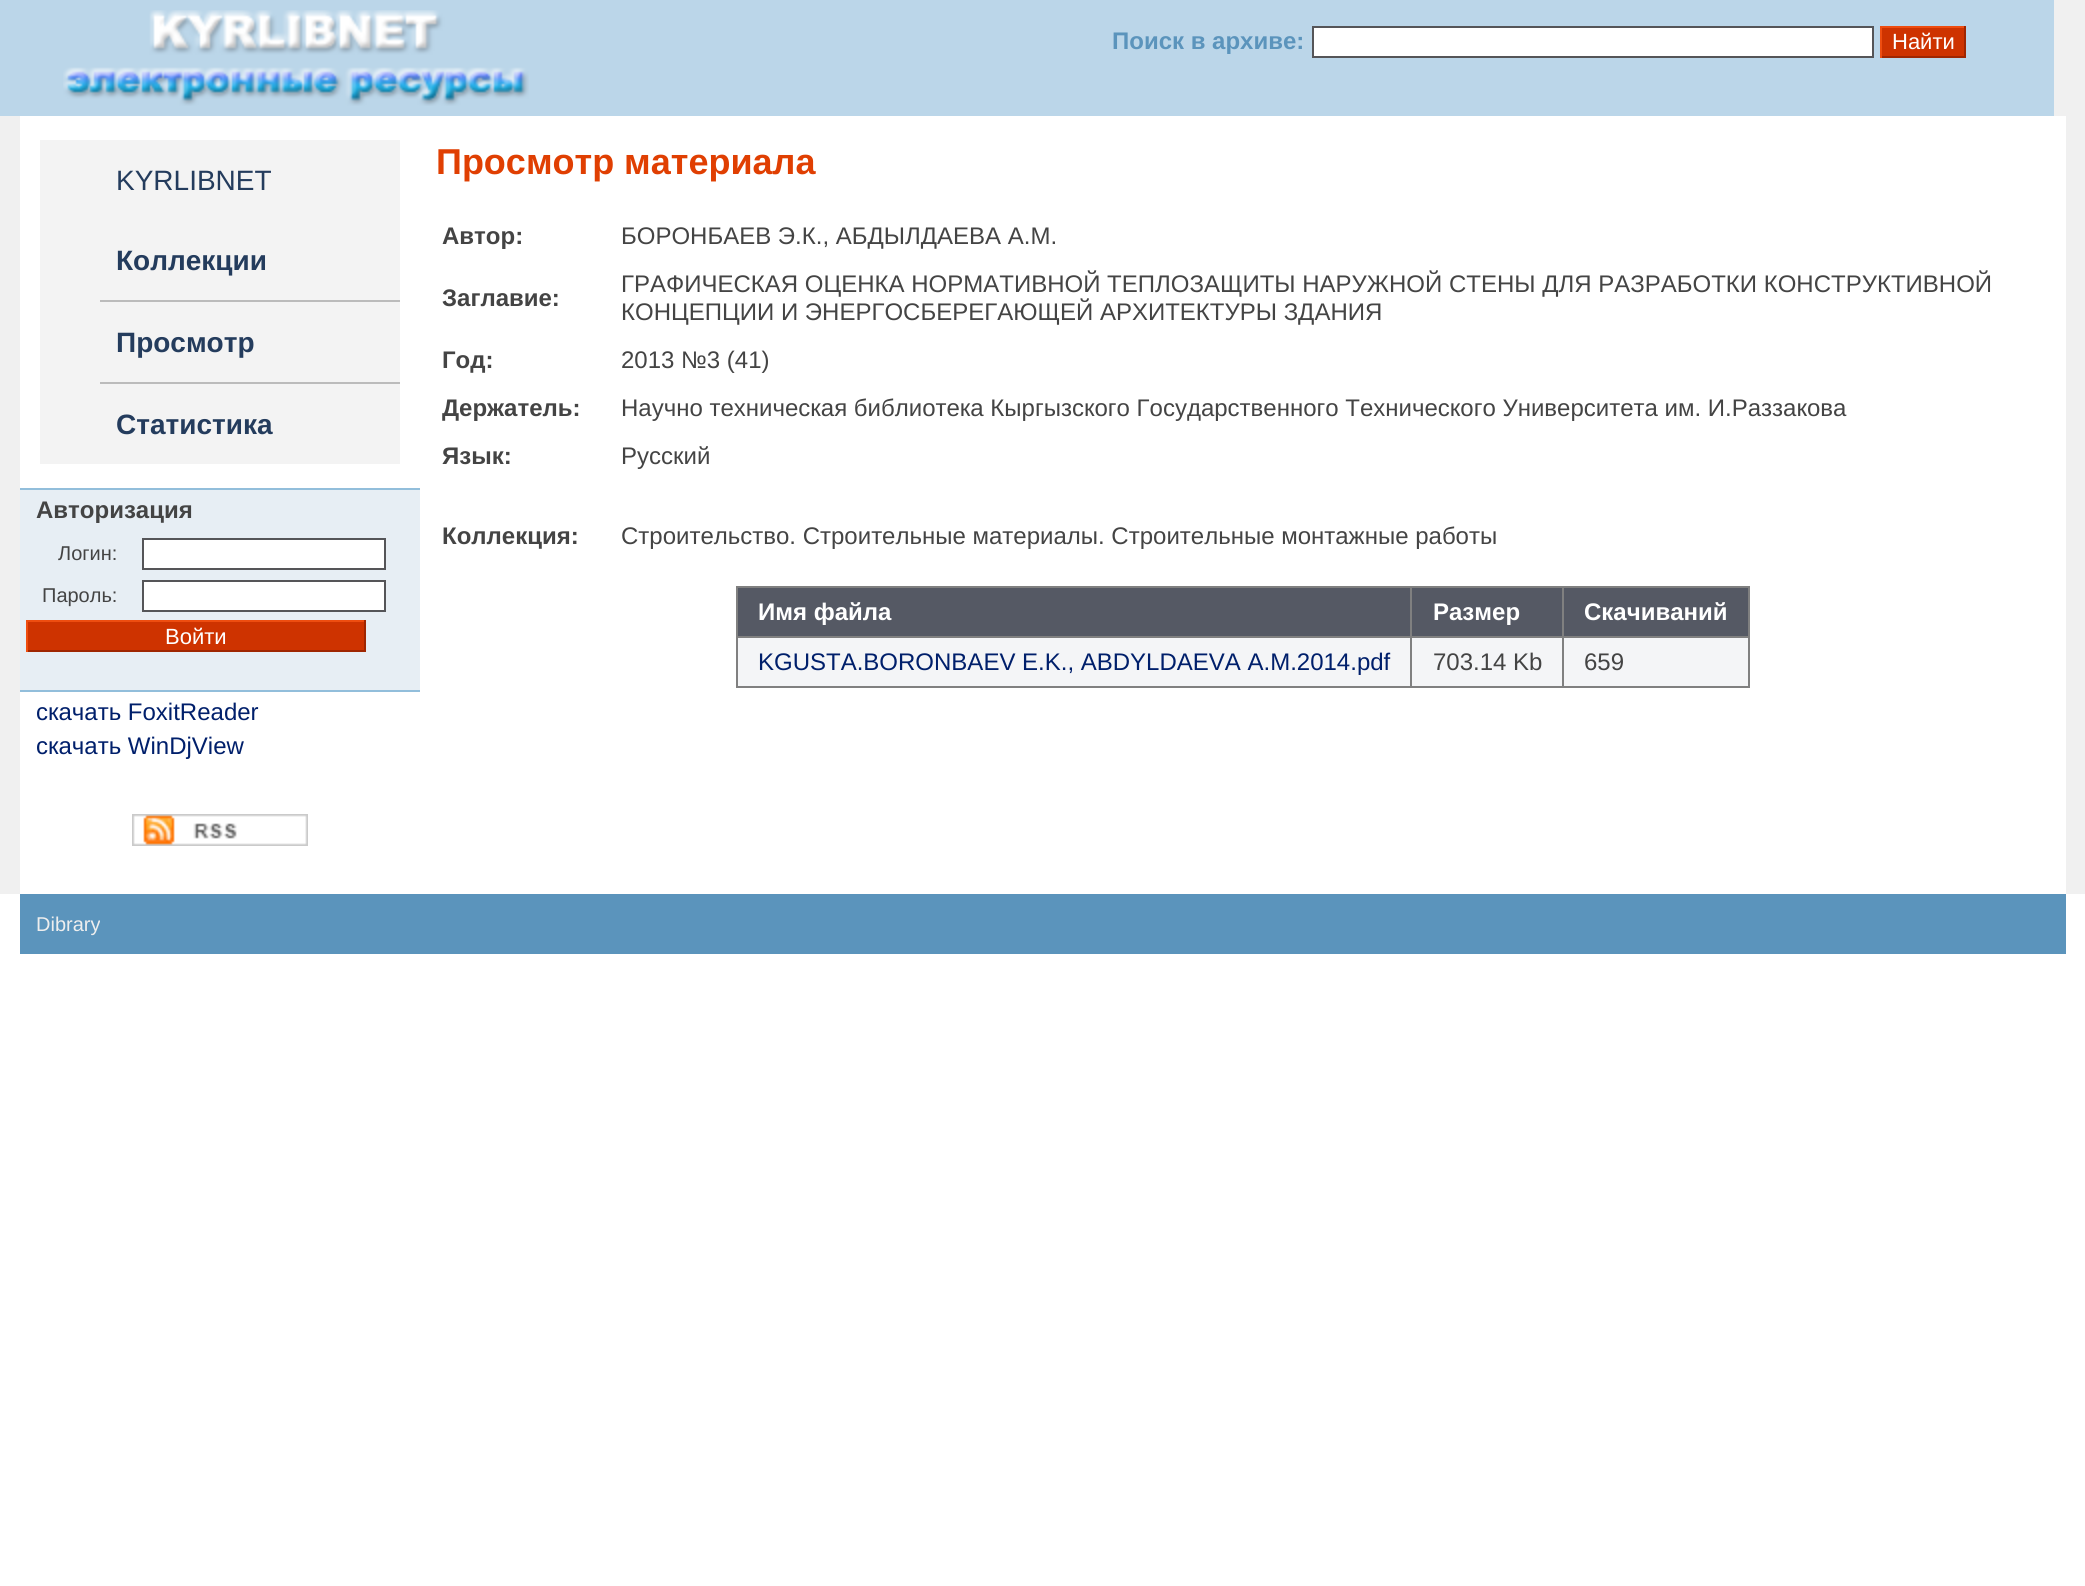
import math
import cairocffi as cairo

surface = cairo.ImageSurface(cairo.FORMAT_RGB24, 2085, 1586)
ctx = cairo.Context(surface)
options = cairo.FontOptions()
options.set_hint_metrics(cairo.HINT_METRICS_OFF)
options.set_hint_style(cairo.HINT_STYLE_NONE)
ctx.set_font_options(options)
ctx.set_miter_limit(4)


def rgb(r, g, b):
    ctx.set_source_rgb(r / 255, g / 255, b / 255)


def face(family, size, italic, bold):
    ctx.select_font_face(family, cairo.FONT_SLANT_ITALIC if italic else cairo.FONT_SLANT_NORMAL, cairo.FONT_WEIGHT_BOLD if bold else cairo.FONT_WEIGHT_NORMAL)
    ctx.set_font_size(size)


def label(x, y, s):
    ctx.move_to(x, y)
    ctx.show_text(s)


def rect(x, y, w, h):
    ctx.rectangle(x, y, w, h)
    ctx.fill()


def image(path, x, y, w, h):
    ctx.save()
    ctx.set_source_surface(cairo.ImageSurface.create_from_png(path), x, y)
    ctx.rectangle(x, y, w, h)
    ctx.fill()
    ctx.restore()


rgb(255, 255, 255)
ctx.paint()
rgb(187, 214, 233)
rect(0, 0, 2054, 116)
image('image0.png', 63, 10, 466, 96)
face('Liberation Sans', 24, 0, 1)
rgb(91, 148, 188)
label(1112, 49, 'Поиск в архиве:')
rgb(255, 255, 255)
ctx.rectangle(1313, 27, 560, 30)
ctx.fill_preserve()
rgb(85, 85, 88)
ctx.stroke()
rgb(206, 51, 0)
rect(1882, 28, 82, 28)
rgb(238, 77, 16)
rect(1880, 26, 86, 2)
rgb(159, 38, 1)
rect(1964, 26, 2, 32)
rect(1880, 56, 86, 2)
rgb(238, 77, 16)
rect(1880, 26, 2, 32)
face('Liberation Sans', 22, 0, 0)
rgb(255, 255, 255)
label(1892, 49, 'Найти')
rgb(240, 240, 240)
rect(2054, 0, 31, 116)
rect(0, 116, 20, 778)
rgb(243, 243, 243)
rect(40, 140, 360, 324)
face('Liberation Sans', 28, 0, 0)
rgb(36, 60, 93)
label(116, 190, 'KYRLIBNET')
face('Liberation Sans', 28, 0, 1)
label(116, 270, 'Коллекции')
rgb(187, 187, 187)
rect(100, 300, 300, 2)
rgb(36, 60, 93)
label(116, 352, 'Просмотр')
rgb(187, 187, 187)
rect(100, 382, 300, 2)
rgb(36, 60, 93)
label(116, 434, 'Статистика')
rgb(146, 190, 219)
rect(20, 488, 400, 2)
rgb(231, 238, 244)
rect(20, 490, 400, 200)
face('Liberation Sans', 24, 0, 1)
rgb(68, 68, 68)
label(36, 518, 'Авторизация')
face('Liberation Sans', 20, 0, 0)
label(58, 560, 'Логин:')
rgb(255, 255, 255)
ctx.rectangle(143, 539, 242, 30)
ctx.fill_preserve()
rgb(85, 85, 88)
ctx.stroke()
rgb(68, 68, 68)
label(42, 602, 'Пароль:')
rgb(255, 255, 255)
ctx.rectangle(143, 581, 242, 30)
ctx.fill_preserve()
rgb(85, 85, 88)
ctx.stroke()
rgb(206, 51, 0)
rect(28, 622, 336, 28)
rgb(238, 77, 16)
rect(26, 620, 340, 2)
rgb(159, 38, 1)
rect(364, 620, 2, 32)
rect(26, 650, 340, 2)
rgb(238, 77, 16)
rect(26, 620, 2, 32)
face('Liberation Sans', 22, 0, 0)
rgb(255, 255, 255)
label(165, 644, 'Войти')
rgb(146, 190, 219)
rect(20, 690, 400, 2)
face('Liberation Sans', 24, 0, 0)
rgb(0, 31, 107)
label(36, 720, 'скачать FoxitReader')
label(36, 754, 'скачать WinDjView')
image('image1.png', 132, 814, 176, 32)
face('Liberation Sans', 36, 0, 1)
rgb(224, 63, 2)
label(436, 174, 'Просмотр материала')
face('Liberation Sans', 24, 0, 1)
rgb(68, 68, 68)
label(442, 244, 'Автор:')
face('Liberation Sans', 24, 0, 0)
label(621, 244, 'БОРОНБАЕВ Э.К., АБДЫЛДАЕВА А.М.')
face('Liberation Sans', 24, 0, 1)
label(442, 306, 'Заглавие:')
face('Liberation Sans', 24, 0, 0)
label(621, 292, 'ГРАФИЧЕСКАЯ ОЦЕНКА НОРМАТИВНОЙ ТЕПЛОЗАЩИТЫ НАРУЖНОЙ СТЕНЫ ДЛЯ РАЗРАБОТКИ КОНСТРУКТИВНОЙ')
label(621, 320, 'КОНЦЕПЦИИ И ЭНЕРГОСБЕРЕГАЮЩЕЙ АРХИТЕКТУРЫ ЗДАНИЯ')
face('Liberation Sans', 24, 0, 1)
label(442, 368, 'Год:')
face('Liberation Sans', 24, 0, 0)
label(621, 368, '2013 №3 (41)')
face('Liberation Sans', 24, 0, 1)
label(442, 416, 'Держатель:')
face('Liberation Sans', 24, 0, 0)
label(621, 416, 'Научно техническая библиотека Кыргызского Государственного Технического Университета им. И.Раззакова')
face('Liberation Sans', 24, 0, 1)
label(442, 464, 'Язык:')
face('Liberation Sans', 24, 0, 0)
label(621, 464, 'Русский')
face('Liberation Sans', 24, 0, 1)
label(442, 544, 'Коллекция:')
face('Liberation Sans', 24, 0, 0)
label(621, 544, 'Строительство. Строительные материалы. Строительные монтажные работы')
rgb(128, 128, 128)
rect(736, 586, 1014, 2)
rect(1748, 586, 2, 102)
rect(736, 686, 1014, 2)
rect(736, 586, 2, 102)
rgb(85, 89, 100)
rect(738, 588, 1010, 48)
face('Liberation Sans', 24, 0, 1)
rgb(255, 255, 255)
label(758, 620, 'Имя файла')
rgb(128, 128, 128)
rect(1562, 636, 188, 2)
rgb(244, 245, 247)
rect(738, 638, 1010, 48)
rgb(128, 128, 128)
rect(1562, 636, 2, 52)
rect(1410, 636, 154, 2)
rect(1410, 636, 2, 52)
rect(736, 636, 676, 2)
rect(1410, 586, 2, 52)
rgb(255, 255, 255)
label(1433, 620, 'Размер')
rgb(128, 128, 128)
rect(1562, 586, 2, 52)
rgb(255, 255, 255)
label(1584, 620, 'Скачиваний')
face('Liberation Sans', 24, 0, 0)
rgb(0, 31, 107)
label(758, 670, 'KGUSTA.BORONBAEV E.K., ABDYLDAEVA A.M.2014.pdf')
rgb(68, 68, 68)
label(1433, 670, '703.14 Kb')
label(1584, 670, '659')
rgb(240, 240, 240)
rect(2066, 116, 19, 778)
rgb(91, 148, 188)
rect(20, 894, 2046, 60)
face('Liberation Sans', 20, 0, 0)
rgb(238, 238, 238)
label(36, 931, 'Dibrary')
surface.write_to_png('render.png')
